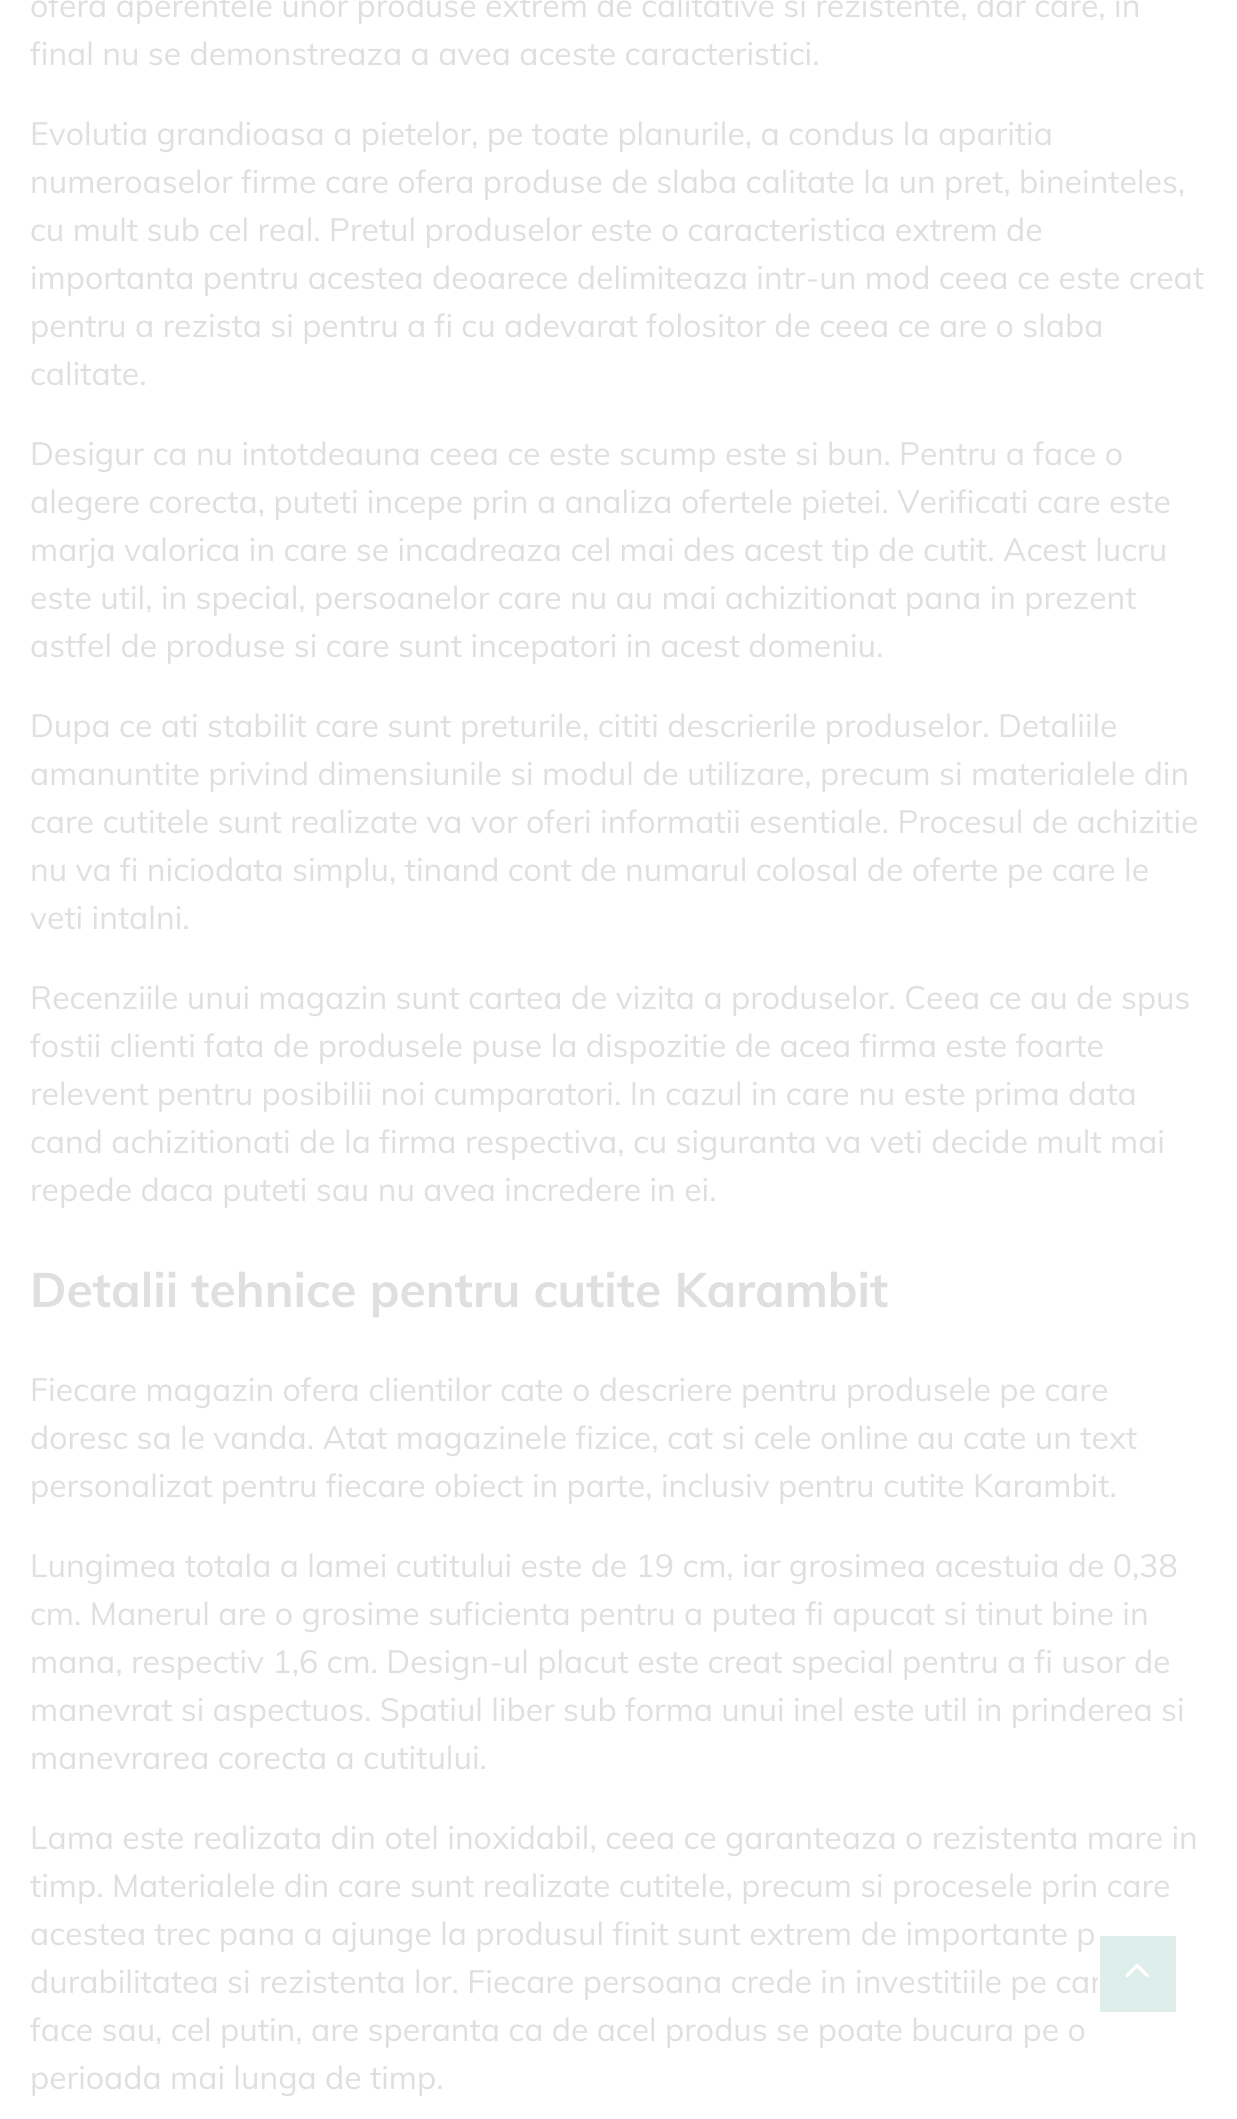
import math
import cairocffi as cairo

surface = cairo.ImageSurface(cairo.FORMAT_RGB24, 1237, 2119)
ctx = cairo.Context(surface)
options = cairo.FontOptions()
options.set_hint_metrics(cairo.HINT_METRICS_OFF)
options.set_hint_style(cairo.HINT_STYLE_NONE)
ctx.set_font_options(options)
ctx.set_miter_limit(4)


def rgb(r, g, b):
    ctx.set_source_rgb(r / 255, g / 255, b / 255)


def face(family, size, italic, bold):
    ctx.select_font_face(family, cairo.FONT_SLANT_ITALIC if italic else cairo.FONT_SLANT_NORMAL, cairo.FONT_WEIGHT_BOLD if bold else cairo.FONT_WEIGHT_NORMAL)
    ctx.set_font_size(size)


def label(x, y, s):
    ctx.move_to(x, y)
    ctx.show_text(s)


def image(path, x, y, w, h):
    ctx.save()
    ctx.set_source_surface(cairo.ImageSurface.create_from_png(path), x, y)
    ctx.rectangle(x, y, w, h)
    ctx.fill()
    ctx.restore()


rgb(255, 255, 255)
ctx.paint()
face('Muli', 32, 0, 0)
rgb(223, 223, 223)
label(30, 17, 'ofera aperentele unor produse extrem de calitative si rezistente, dar care, in')
label(30, 65, 'final nu se demonstreaza a avea aceste caracteristici.')
label(30, 145, 'Evolutia grandioasa a pietelor, pe toate planurile, a condus la aparitia')
label(30, 193, 'numeroaselor firme care ofera produse de slaba calitate la un pret, bineinteles,')
label(30, 241, 'cu mult sub cel real. Pretul produselor este o caracteristica extrem de')
label(30, 289, 'importanta pentru acestea deoarece delimiteaza intr-un mod ceea ce este creat')
label(30, 337, 'pentru a rezista si pentru a fi cu adevarat folositor de ceea ce are o slaba')
label(30, 385, 'calitate.')
label(30, 465, 'Desigur ca nu intotdeauna ceea ce este scump este si bun. Pentru a face o')
label(30, 513, 'alegere corecta, puteti incepe prin a analiza ofertele pietei. Verificati care este')
label(30, 561, 'marja valorica in care se incadreaza cel mai des acest tip de cutit. Acest lucru')
label(30, 609, 'este util, in special, persoanelor care nu au mai achizitionat pana in prezent')
label(30, 657, 'astfel de produse si care sunt incepatori in acest domeniu.')
label(30, 737, 'Dupa ce ati stabilit care sunt preturile, cititi descrierile produselor. Detaliile')
label(30, 785, 'amanuntite privind dimensiunile si modul de utilizare, precum si materialele din')
label(30, 833, 'care cutitele sunt realizate va vor oferi informatii esentiale. Procesul de achizitie')
label(30, 881, 'nu va fi niciodata simplu, tinand cont de numarul colosal de oferte pe care le')
label(30, 929, 'veti intalni.')
label(30, 1009, 'Recenziile unui magazin sunt cartea de vizita a produselor. Ceea ce au de spus')
label(30, 1057, 'fostii clienti fata de produsele puse la dispozitie de acea firma este foarte')
label(30, 1105, 'relevent pentru posibilii noi cumparatori. In cazul in care nu este prima data')
label(30, 1153, 'cand achizitionati de la firma respectiva, cu siguranta va veti decide mult mai')
label(30, 1201, 'repede daca puteti sau nu avea incredere in ei.')
face('Muli', 48, 0, 1)
label(30, 1307, 'Detalii tehnice pentru cutite Karambit')
face('Muli', 32, 0, 0)
label(30, 1401, 'Fiecare magazin ofera clientilor cate o descriere pentru produsele pe care')
label(30, 1449, 'doresc sa le vanda. Atat magazinele fizice, cat si cele online au cate un text')
label(30, 1497, 'personalizat pentru fiecare obiect in parte, inclusiv pentru cutite Karambit.')
label(30, 1577, 'Lungimea totala a lamei cutitului este de 19 cm, iar grosimea acestuia de 0,38')
label(30, 1625, 'cm. Manerul are o grosime suficienta pentru a putea fi apucat si tinut bine in')
label(30, 1673, 'mana, respectiv 1,6 cm. Design-ul placut este creat special pentru a fi usor de')
label(30, 1721, 'manevrat si aspectuos. Spatiul liber sub forma unui inel este util in prinderea si')
label(30, 1769, 'manevrarea corecta a cutitului.')
label(30, 1849, 'Lama este realizata din otel inoxidabil, ceea ce garanteaza o rezistenta mare in')
label(30, 1897, 'timp. Materialele din care sunt realizate cutitele, precum si procesele prin care')
label(30, 1945, 'acestea trec pana a ajunge la produsul finit sunt extrem de importante p')
label(30, 1993, 'durabilitatea si rezistenta lor. Fiecare persoana crede in investitiile pe car')
label(30, 2041, 'face sau, cel putin, are speranta ca de acel produs se poate bucura pe o')
label(30, 2089, 'perioada mai lunga de timp.')
rgb(222, 238, 234)
ctx.rectangle(1099, 1935, 78, 78)
ctx.fill_preserve()
rgb(255, 255, 255)
ctx.stroke()
image('image0.png', 1125, 1963, 24, 14)
surface.write_to_png('render.png')
